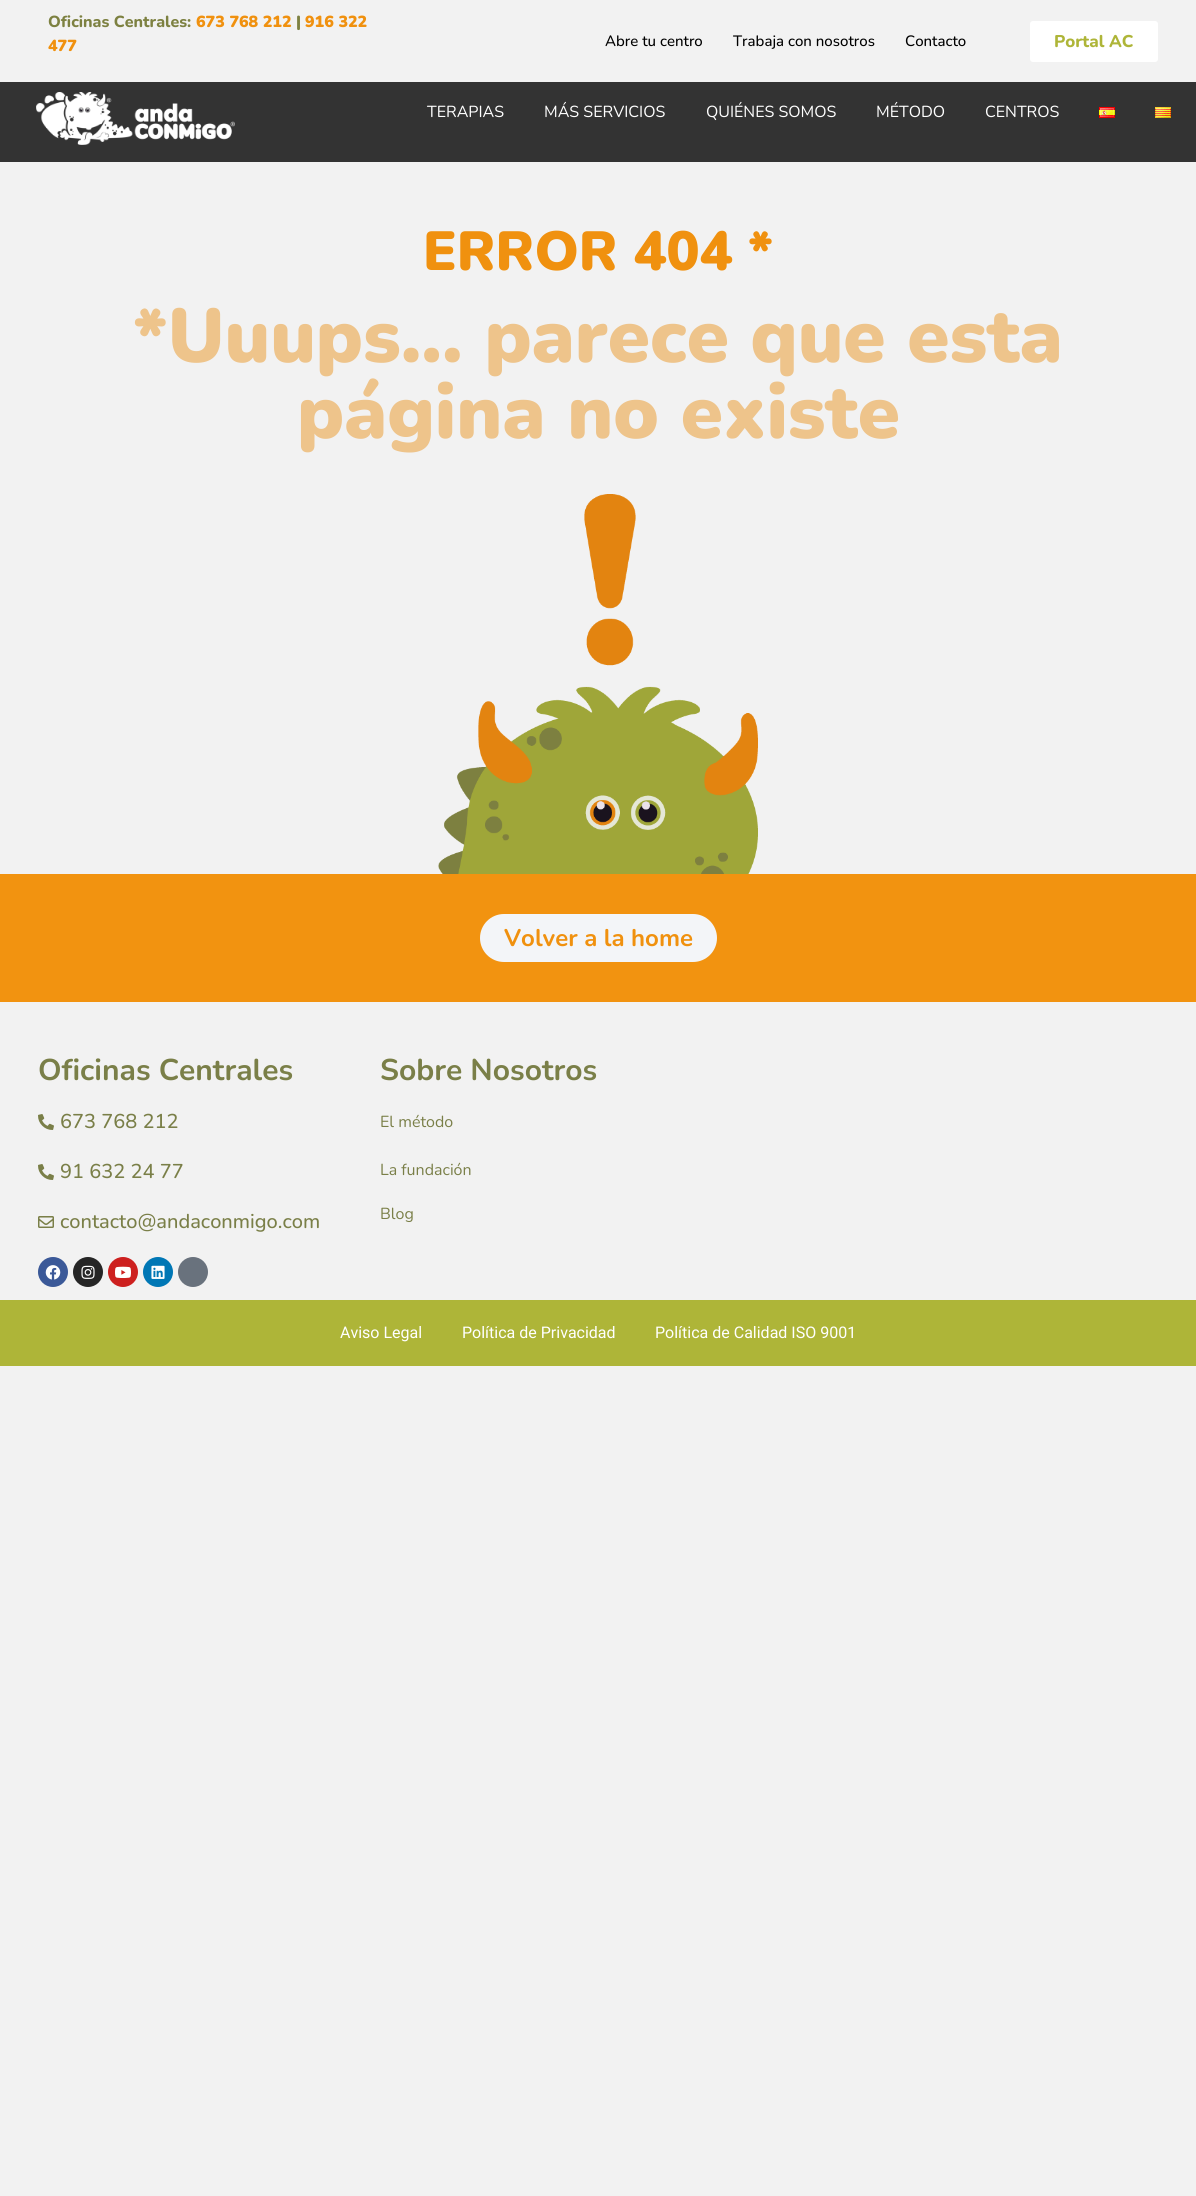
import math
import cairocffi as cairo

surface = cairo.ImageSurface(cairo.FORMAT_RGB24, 1196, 2196)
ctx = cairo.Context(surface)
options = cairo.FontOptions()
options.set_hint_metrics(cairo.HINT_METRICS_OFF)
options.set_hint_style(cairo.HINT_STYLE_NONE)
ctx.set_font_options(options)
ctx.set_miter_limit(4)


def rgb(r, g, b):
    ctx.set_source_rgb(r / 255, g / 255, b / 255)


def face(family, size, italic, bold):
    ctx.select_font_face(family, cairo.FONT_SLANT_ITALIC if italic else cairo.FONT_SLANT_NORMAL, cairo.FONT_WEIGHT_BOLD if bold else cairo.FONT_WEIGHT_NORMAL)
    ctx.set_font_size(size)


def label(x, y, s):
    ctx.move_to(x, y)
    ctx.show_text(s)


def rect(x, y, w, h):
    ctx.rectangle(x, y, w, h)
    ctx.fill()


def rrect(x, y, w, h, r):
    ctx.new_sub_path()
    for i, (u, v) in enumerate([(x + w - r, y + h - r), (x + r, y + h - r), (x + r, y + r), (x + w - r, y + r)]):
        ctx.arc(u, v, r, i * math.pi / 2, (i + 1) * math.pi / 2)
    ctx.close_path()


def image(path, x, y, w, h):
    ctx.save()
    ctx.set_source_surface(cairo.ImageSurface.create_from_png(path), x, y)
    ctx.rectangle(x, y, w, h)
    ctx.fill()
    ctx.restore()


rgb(242, 242, 242)
ctx.paint()
face('Nunito ExtraBold', 16, 0, 0)
rgb(125, 129, 65)
label(48, 27, 'Oficinas Centrales:')
face('Nunito Black', 16, 0, 0)
rgb(240, 145, 15)
label(196, 27, '673 768 212')
rgb(125, 129, 65)
label(296, 27, '|')
rgb(240, 145, 15)
label(305, 27, '916 322')
label(48, 51, '477')
face('Nunito Medium', 15, 0, 0)
rgb(0, 0, 0)
label(605, 46, 'Abre tu centro')
label(733, 46, 'Trabaja con nosotros')
label(905, 46, 'Contacto')
rgb(255, 255, 255)
rrect(1030, 21, 128, 41, 3)
ctx.fill()
face('Nunito ExtraBold', 17, 0, 0)
rgb(174, 181, 56)
label(1054, 47, 'Portal AC')
rgb(51, 51, 51)
rect(0, 82, 1196, 80)
image('image0.png', 36, 92, 199, 53)
face('Nunito', 16, 0, 0)
rgb(255, 255, 255)
label(427, 117, 'TERAPIAS')
label(544, 117, 'MÁS SERVICIOS')
label(706, 117, 'QUIÉNES SOMOS')
label(876, 117, 'MÉTODO')
label(985, 117, 'CENTROS')
image('image1.png', 1099, 107, 16, 11)
image('image2.png', 1155, 107, 16, 11)
face('Nunito Black', 55, 0, 0)
rgb(240, 145, 15)
label(423, 270, 'ERROR 404 *')
face('Nunito Black', 76, 0, 0)
rgb(238, 196, 139)
label(133, 362, '*Uuups... parece que esta')
label(297, 438, 'página no existe')
image('image3.png', 438, 494, 320, 380)
rgb(242, 147, 16)
rect(0, 874, 1196, 128)
rgb(243, 245, 248)
rrect(480, 914, 237, 48, 24)
ctx.fill()
face('Nunito', 24, 0, 1)
rgb(240, 145, 15)
label(504, 946, 'Volver a la home')
face('Nunito', 30, 0, 1)
rgb(122, 127, 72)
label(38, 1080, 'Oficinas Centrales')
image('image4.png', 38, 1114, 16, 16)
face('Nunito Medium', 20, 0, 0)
label(60, 1128, '673 768 212')
image('image4.png', 38, 1164, 16, 16)
label(60, 1178, '91 632 24 77')
image('image5.png', 38, 1216, 16, 12)
label(60, 1228, 'contacto@andaconmigo.com')
rgb(59, 89, 152)
ctx.new_path()
ctx.arc(53, 1272, 15, 0, 2 * math.pi)
ctx.fill()
image('image6.png', 45, 1265, 16, 15)
rgb(38, 38, 38)
ctx.arc(88, 1272, 15, 0, 2 * math.pi)
ctx.fill()
image('image7.png', 81, 1265, 14, 14)
rgb(205, 32, 31)
ctx.arc(123, 1272, 15, 0, 2 * math.pi)
ctx.fill()
image('image8.png', 115, 1266, 16, 12)
rgb(0, 119, 181)
ctx.arc(158, 1272, 15, 0, 2 * math.pi)
ctx.fill()
image('image9.png', 151, 1265, 14, 14)
rgb(105, 114, 125)
ctx.arc(193, 1272, 15, 0, 2 * math.pi)
ctx.fill()
face('Nunito', 30, 0, 1)
rgb(122, 127, 72)
label(380, 1080, 'Sobre Nosotros')
face('Nunito', 16, 0, 0)
label(380, 1127, 'El método')
label(380, 1175, 'La fundación')
label(380, 1219, 'Blog')
rgb(174, 181, 56)
rect(0, 1300, 1196, 66)
face('Roboto', 16, 0, 0)
rgb(255, 255, 255)
label(340, 1338, 'Aviso Legal')
label(462, 1338, 'Política de Privacidad')
label(655, 1338, 'Política de Calidad ISO 9001')
surface.write_to_png('render.png')
